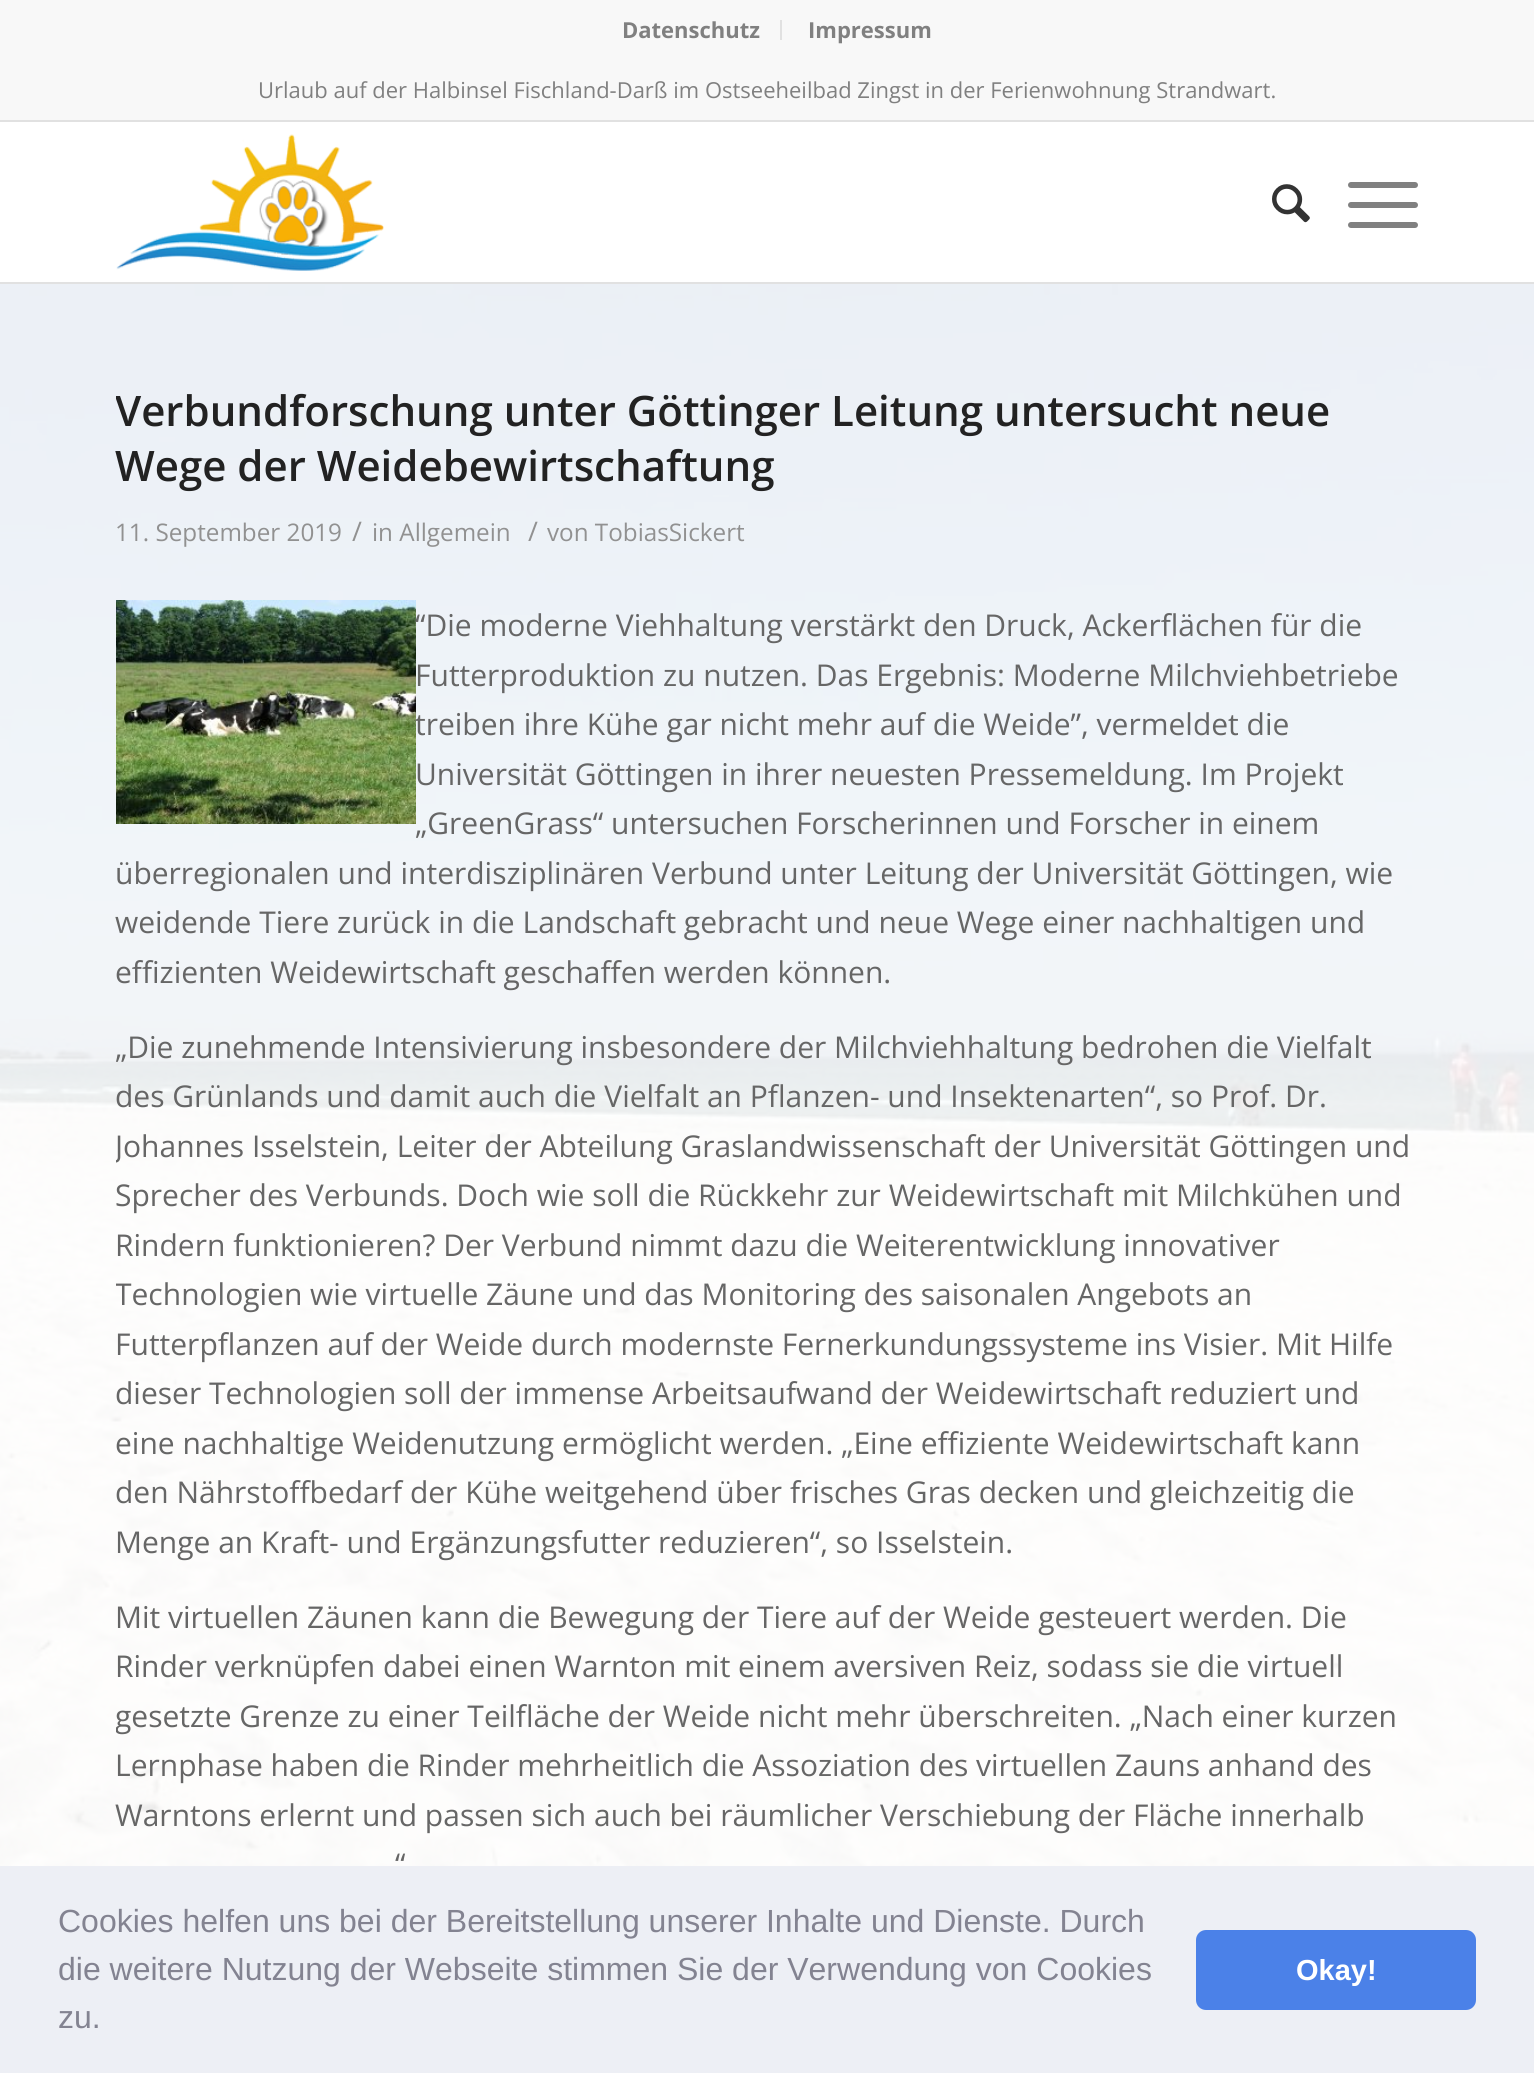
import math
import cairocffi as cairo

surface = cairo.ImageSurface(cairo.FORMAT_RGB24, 1534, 2073)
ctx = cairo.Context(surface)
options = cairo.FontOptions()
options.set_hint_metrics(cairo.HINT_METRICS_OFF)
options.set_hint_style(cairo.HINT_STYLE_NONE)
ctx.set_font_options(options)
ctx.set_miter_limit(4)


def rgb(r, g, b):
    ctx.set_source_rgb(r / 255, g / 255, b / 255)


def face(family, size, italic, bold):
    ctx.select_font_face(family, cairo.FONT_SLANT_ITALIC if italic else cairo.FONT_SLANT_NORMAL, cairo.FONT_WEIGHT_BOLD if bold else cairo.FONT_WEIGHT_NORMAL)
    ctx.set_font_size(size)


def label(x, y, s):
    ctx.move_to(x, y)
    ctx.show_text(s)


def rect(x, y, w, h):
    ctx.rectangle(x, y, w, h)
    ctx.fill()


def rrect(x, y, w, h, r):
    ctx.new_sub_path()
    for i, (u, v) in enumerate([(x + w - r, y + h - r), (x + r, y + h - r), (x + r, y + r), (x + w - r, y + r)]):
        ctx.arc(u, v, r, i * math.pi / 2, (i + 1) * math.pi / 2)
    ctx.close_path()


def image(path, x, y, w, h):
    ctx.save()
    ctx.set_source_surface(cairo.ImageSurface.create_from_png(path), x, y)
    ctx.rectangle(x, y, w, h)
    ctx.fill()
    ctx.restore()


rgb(255, 255, 255)
ctx.paint()
rgb(248, 248, 248)
rect(0, 0, 1534, 120)
rgb(225, 225, 225)
rect(0, 120, 1534, 2)
rect(780, 20, 2, 20)
face('Open Sans', 22, 0, 1)
rgb(128, 128, 128)
label(622, 38, 'Datenschutz')
label(808, 38, 'Impressum')
face('Open Sans', 22, 0, 0)
label(258, 98, 'Urlaub auf der Halbinsel Fischland-Darß im Ostseeheilbad Zingst in der Ferienwohnung Strandwart.')
rgb(225, 225, 225)
rect(0, 282, 1534, 2)
image('image0.png', 116, 134, 268, 137)
image('image1.png', 1272, 184, 38, 39)
rgb(128, 128, 128)
rrect(1348, 202, 70, 6, 3)
ctx.fill()
rrect(1348, 182, 70, 6, 3)
ctx.fill()
rrect(1348, 222, 70, 6, 3)
ctx.fill()
image('image3.png', 0, 284, 1534, 1582)
ctx.set_source_rgba(1, 1, 1, 0.9)
rect(0, 284, 1534, 1582)
ctx.save()
ctx.rectangle(116, 384, 1302, 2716)
ctx.clip()
face('Open Sans SemiBold', 42, 0, 0)
rgb(34, 34, 34)
label(115, 426, 'Verbundforschung unter Göttinger Leitung untersucht neue')
ctx.restore()
face('Open Sans SemiBold', 42, 0, 0)
rgb(34, 34, 34)
label(115, 481, 'Wege der Weidebewirtschaftung')
face('Open Sans', 24.25, 0, 0)
rgb(145, 145, 145)
label(115, 541, '11. September 2019')
face('Open Sans', 27, 0, 0)
label(352, 541, '/')
face('Open Sans', 24.25, 0, 0)
label(372, 541, 'in Allgemein')
face('Open Sans', 27, 0, 0)
label(528, 541, '/')
face('Open Sans', 24.25, 0, 0)
label(547, 541, 'von TobiasSickert')
image('image2.png', 116, 600, 300, 224)
face('Open Sans', 30, 0, 0)
rgb(102, 102, 102)
label(415, 636, '“Die moderne Viehhaltung verstärkt den Druck, Ackerflächen für die')
label(415, 686, 'Futterproduktion zu nutzen. Das Ergebnis: Moderne Milchviehbetriebe')
label(415, 735, 'treiben ihre Kühe gar nicht mehr auf die Weide”, vermeldet die')
label(415, 785, 'Universität Göttingen in ihrer neuesten Pressemeldung. Im Projekt')
label(415, 834, '„GreenGrass“ untersuchen Forscherinnen und Forscher in einem')
label(115, 884, 'überregionalen und interdisziplinären Verbund unter Leitung der Universität Göttingen, wie')
label(115, 933, 'weidende Tiere zurück in die Landschaft gebracht und neue Wege einer nachhaltigen und')
label(115, 983, 'effizienten Weidewirtschaft geschaffen werden können.')
label(115, 1058, '„Die zunehmende Intensivierung insbesondere der Milchviehhaltung bedrohen die Vielfalt')
label(115, 1107, 'des Grünlands und damit auch die Vielfalt an Pflanzen- und Insektenarten“, so Prof. Dr.')
ctx.save()
ctx.rectangle(116, 384, 1302, 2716)
ctx.clip()
label(115, 1157, 'Johannes Isselstein, Leiter der Abteilung Graslandwissenschaft der Universität Göttingen und')
ctx.restore()
label(115, 1206, 'Sprecher des Verbunds. Doch wie soll die Rückkehr zur Weidewirtschaft mit Milchkühen und')
label(115, 1256, 'Rindern funktionieren? Der Verbund nimmt dazu die Weiterentwicklung innovativer')
ctx.save()
ctx.rectangle(116, 384, 1302, 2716)
ctx.clip()
label(115, 1305, 'Technologien wie virtuelle Zäune und das Monitoring des saisonalen Angebots an')
ctx.restore()
label(115, 1355, 'Futterpflanzen auf der Weide durch modernste Fernerkundungssysteme ins Visier. Mit Hilfe')
label(115, 1404, 'dieser Technologien soll der immense Arbeitsaufwand der Weidewirtschaft reduziert und')
label(115, 1454, 'eine nachhaltige Weidenutzung ermöglicht werden. „Eine effiziente Weidewirtschaft kann')
label(115, 1503, 'den Nährstoffbedarf der Kühe weitgehend über frisches Gras decken und gleichzeitig die')
label(115, 1553, 'Menge an Kraft- und Ergänzungsfutter reduzieren“, so Isselstein.')
label(115, 1628, 'Mit virtuellen Zäunen kann die Bewegung der Tiere auf der Weide gesteuert werden. Die')
label(115, 1677, 'Rinder verknüpfen dabei einen Warnton mit einem aversiven Reiz, sodass sie die virtuell')
ctx.save()
ctx.rectangle(116, 384, 1302, 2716)
ctx.clip()
label(115, 1727, 'gesetzte Grenze zu einer Teilfläche der Weide nicht mehr überschreiten. „Nach einer kurzen')
ctx.restore()
label(115, 1776, 'Lernphase haben die Rinder mehrheitlich die Assoziation des virtuellen Zauns anhand des')
label(115, 1826, 'Warntons erlernt und passen sich auch bei räumlicher Verschiebung der Fläche innerhalb')
label(395, 1875, '“')
rgb(237, 239, 245)
rect(0, 1866, 1534, 207)
face('Liberation Sans', 32, 0, 0)
rgb(131, 131, 145)
label(58, 1932, 'Cookies helfen uns bei der Bereitstellung unserer Inhalte und Dienste. Durch')
label(58, 1980, 'die weitere Nutzung der Webseite stimmen Sie der Verwendung von Cookies')
label(58, 2028, 'zu.')
rgb(75, 129, 232)
rrect(1196, 1930, 280, 80, 10)
ctx.fill()
face('Liberation Sans', 29, 0, 1)
rgb(255, 255, 255)
label(1296, 1980, 'Okay!')
surface.write_to_png('render.png')
